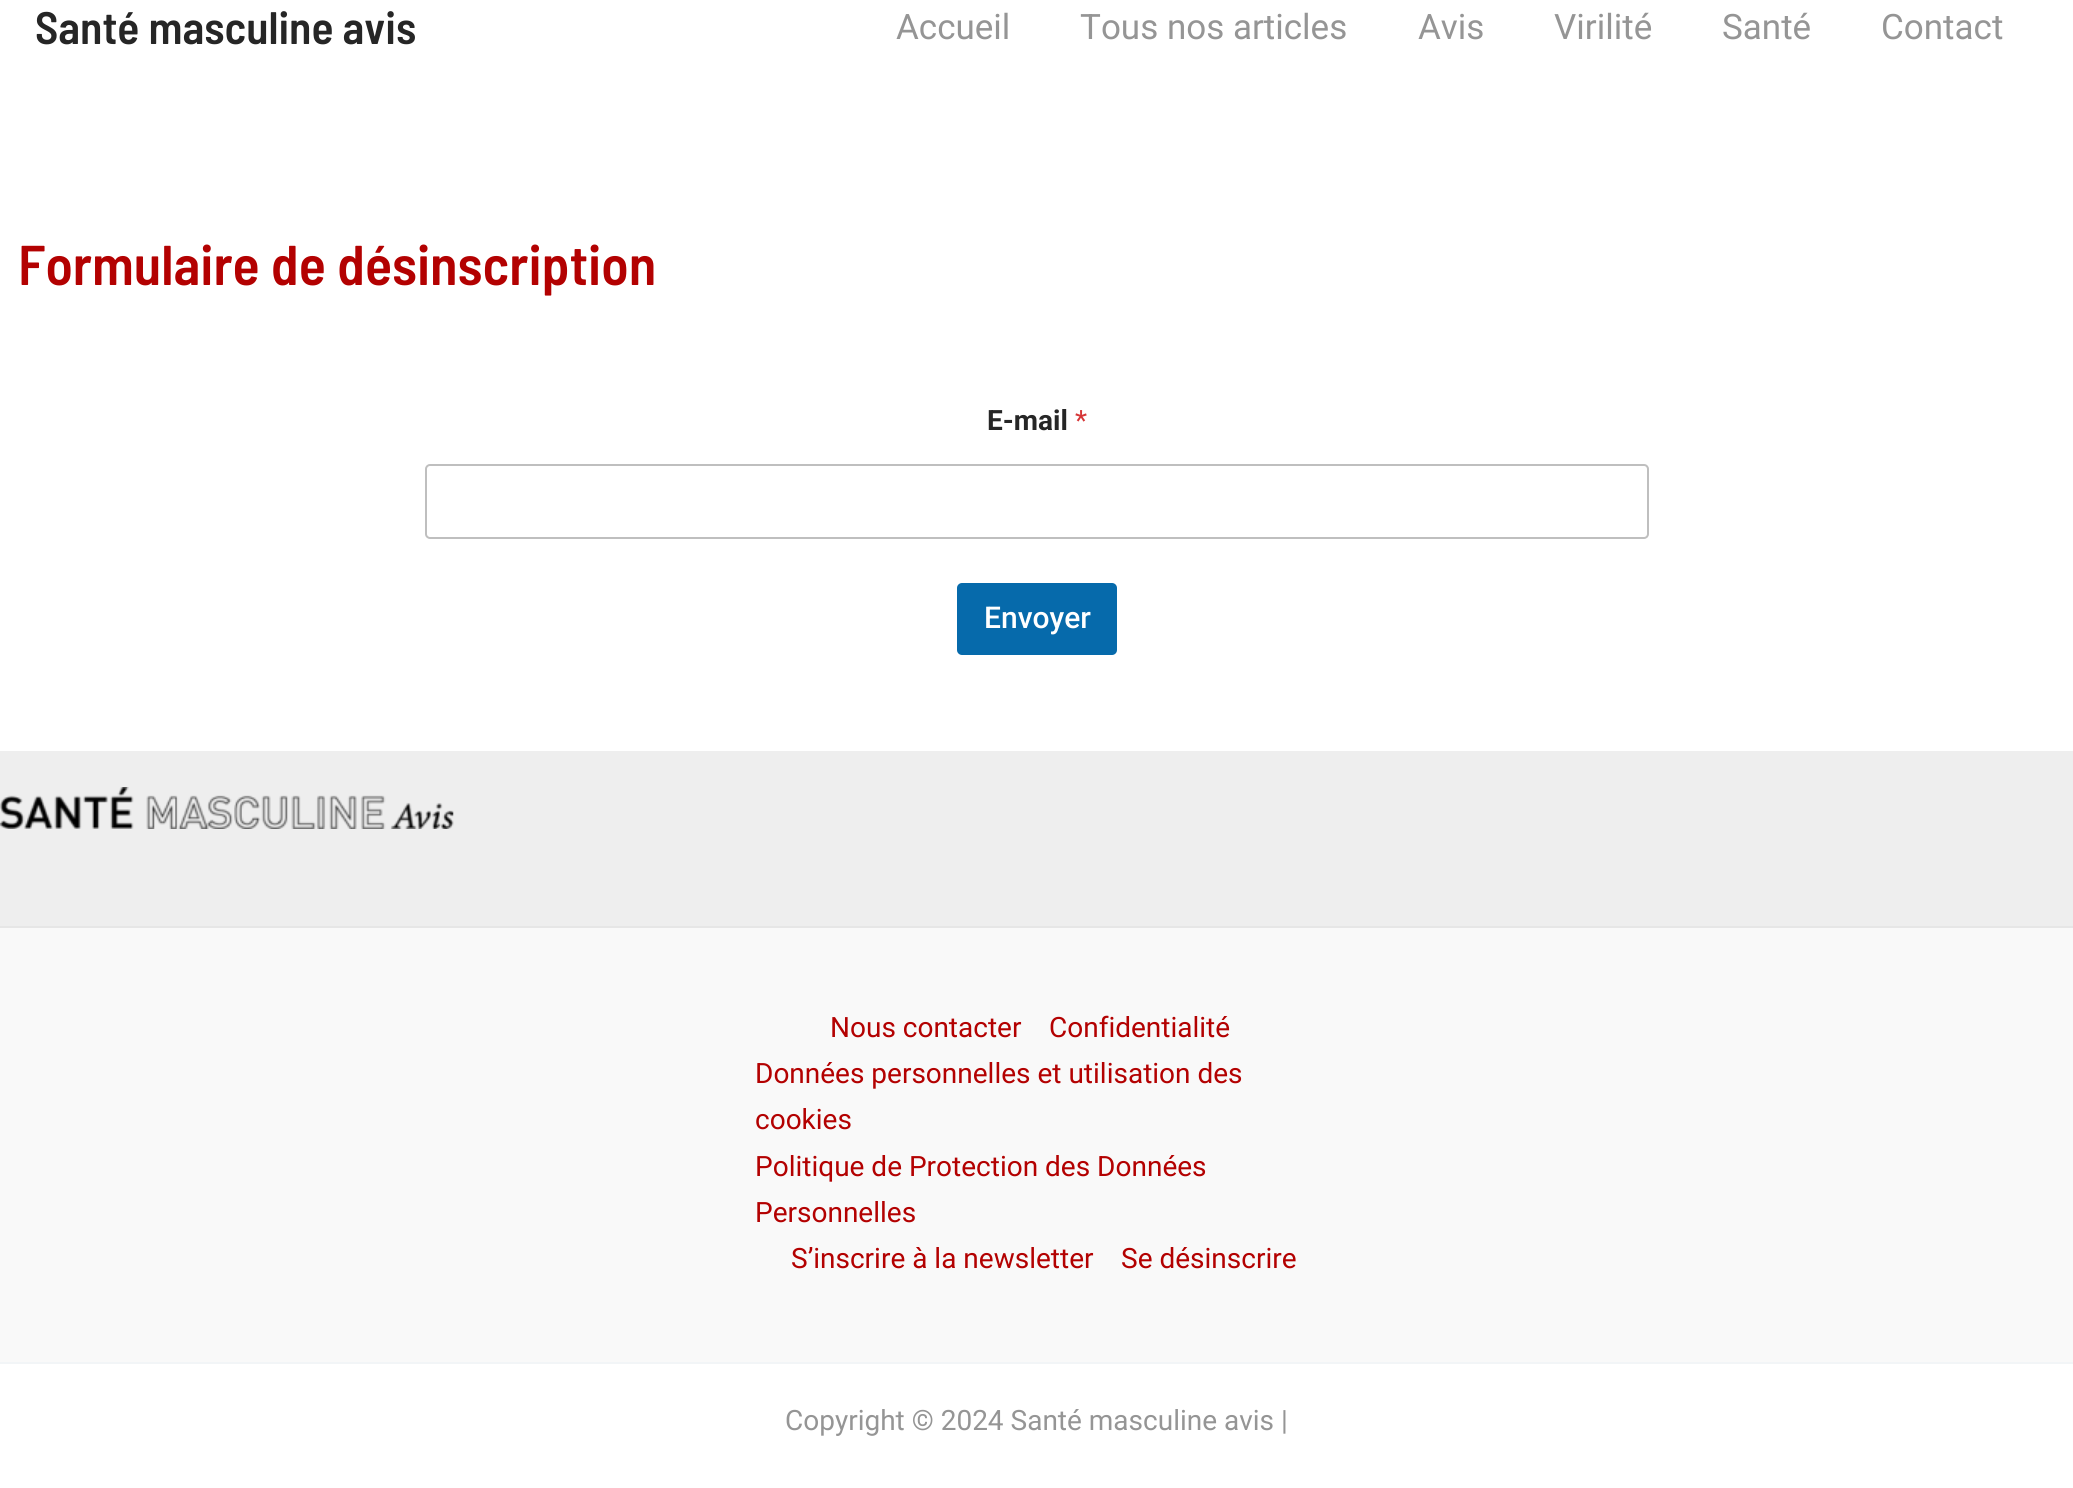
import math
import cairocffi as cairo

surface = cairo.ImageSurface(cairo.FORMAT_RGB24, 2073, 1488)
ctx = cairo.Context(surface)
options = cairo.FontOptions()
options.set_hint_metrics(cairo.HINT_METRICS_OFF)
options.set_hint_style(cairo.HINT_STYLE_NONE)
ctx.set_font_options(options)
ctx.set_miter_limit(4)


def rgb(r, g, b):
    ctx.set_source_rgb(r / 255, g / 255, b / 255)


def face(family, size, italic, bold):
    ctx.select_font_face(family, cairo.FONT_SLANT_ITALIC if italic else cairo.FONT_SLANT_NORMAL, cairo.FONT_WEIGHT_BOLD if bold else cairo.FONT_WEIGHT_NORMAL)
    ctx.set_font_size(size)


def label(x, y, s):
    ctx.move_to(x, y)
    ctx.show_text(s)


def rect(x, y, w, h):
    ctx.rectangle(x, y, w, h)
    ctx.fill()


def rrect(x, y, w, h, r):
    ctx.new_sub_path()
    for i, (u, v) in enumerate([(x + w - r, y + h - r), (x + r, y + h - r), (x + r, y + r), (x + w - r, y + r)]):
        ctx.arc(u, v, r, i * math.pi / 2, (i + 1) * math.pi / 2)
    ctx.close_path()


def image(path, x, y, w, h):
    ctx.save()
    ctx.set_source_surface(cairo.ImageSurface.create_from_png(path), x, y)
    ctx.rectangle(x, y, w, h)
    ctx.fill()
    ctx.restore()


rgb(255, 255, 255)
ctx.paint()
face('Barlow Semi Condensed SemiBold', 45.5, 0, 0)
rgb(38, 38, 38)
label(35, 44, 'Santé masculine avis')
face('Roboto', 35, 0, 0)
rgb(149, 149, 149)
label(896, 39, 'Accueil')
label(1080, 39, 'Tous nos articles')
label(1418, 39, 'Avis')
label(1554, 39, 'Virilité')
label(1722, 39, 'Santé')
label(1881, 39, 'Contact')
face('Barlow Semi Condensed SemiBold', 56, 0, 0)
rgb(179, 1, 1)
label(18, 285, 'Formulaire de désinscription')
face('Roboto', 28, 0, 1)
rgb(38, 38, 38)
label(987, 430, 'E-mail')
face('Roboto', 28, 0, 0)
rgb(214, 54, 55)
label(1075, 430, '*')
rrect(426, 465, 1222, 73, 4)
rgb(191, 191, 191)
ctx.stroke()
rgb(6, 106, 171)
rrect(957, 583, 160, 72, 5)
ctx.fill()
face('Roboto Medium', 30, 0, 0)
rgb(255, 255, 255)
label(984, 628, 'Envoyer')
rgb(238, 238, 238)
rect(0, 751, 2073, 175)
image('image0.png', 0, 787, 454, 42)
rgb(249, 249, 249)
rect(0, 928, 2073, 434)
rgb(230, 230, 230)
rect(0, 926, 2073, 2)
face('Roboto', 28, 0, 0)
rgb(179, 1, 1)
label(830, 1037, 'Nous contacter')
label(1049, 1037, 'Confidentialité')
label(755, 1083, 'Données personnelles et utilisation des')
label(755, 1129, 'cookies')
label(755, 1176, 'Politique de Protection des Données')
label(755, 1222, 'Personnelles')
label(791, 1268, 'S’inscrire à la newsletter')
label(1121, 1268, 'Se désinscrire')
rgb(242, 245, 247)
rect(0, 1362, 2073, 2)
rgb(149, 149, 149)
label(785, 1430, 'Copyright © 2024 Santé masculine avis |')
surface.write_to_png('render.png')
